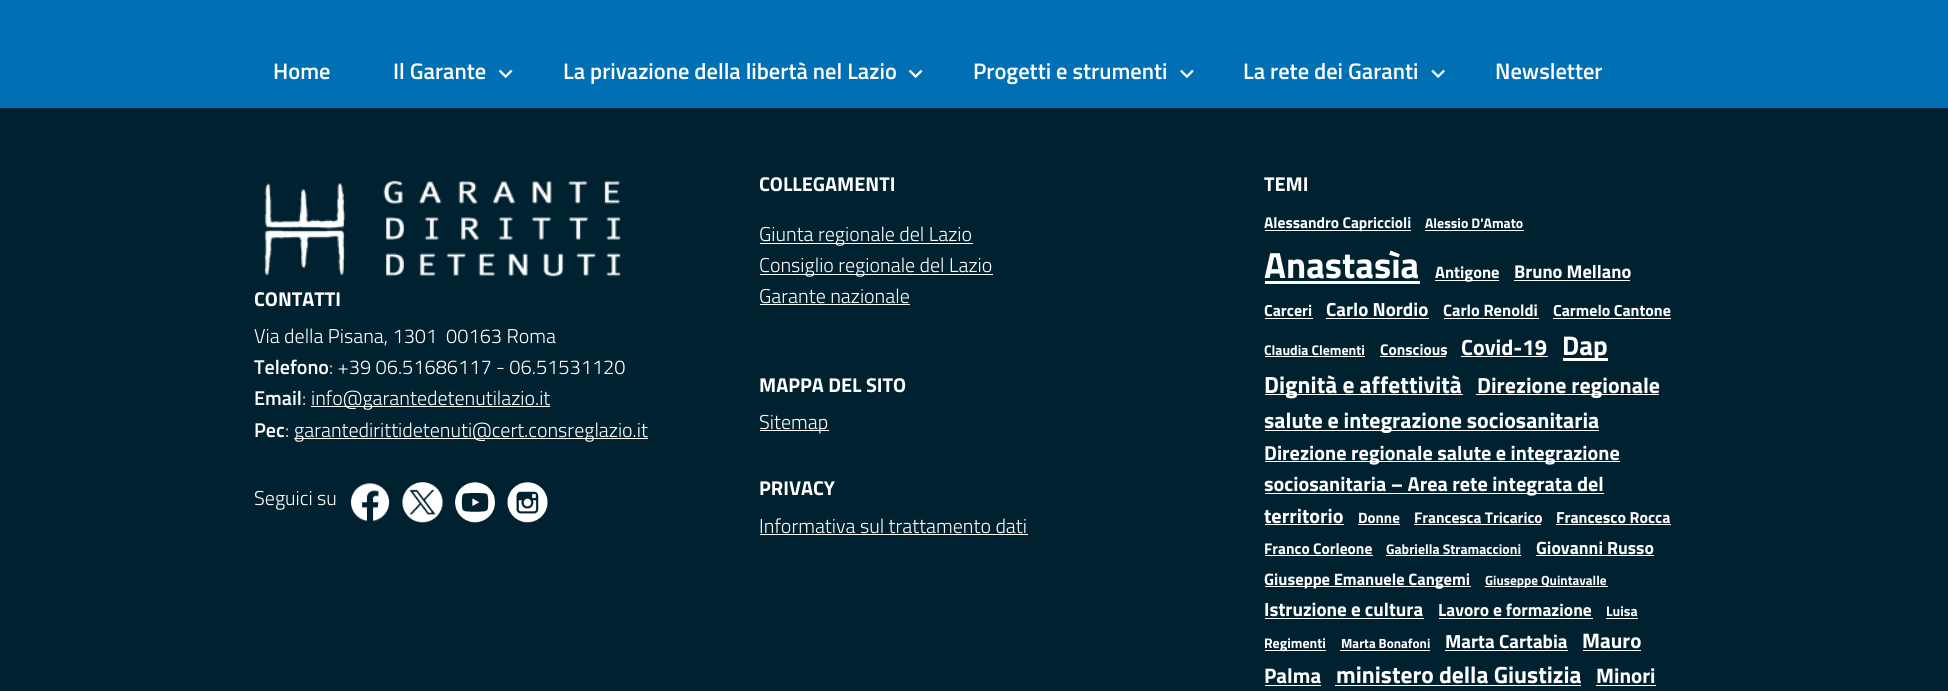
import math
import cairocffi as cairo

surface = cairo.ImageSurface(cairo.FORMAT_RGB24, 1948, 691)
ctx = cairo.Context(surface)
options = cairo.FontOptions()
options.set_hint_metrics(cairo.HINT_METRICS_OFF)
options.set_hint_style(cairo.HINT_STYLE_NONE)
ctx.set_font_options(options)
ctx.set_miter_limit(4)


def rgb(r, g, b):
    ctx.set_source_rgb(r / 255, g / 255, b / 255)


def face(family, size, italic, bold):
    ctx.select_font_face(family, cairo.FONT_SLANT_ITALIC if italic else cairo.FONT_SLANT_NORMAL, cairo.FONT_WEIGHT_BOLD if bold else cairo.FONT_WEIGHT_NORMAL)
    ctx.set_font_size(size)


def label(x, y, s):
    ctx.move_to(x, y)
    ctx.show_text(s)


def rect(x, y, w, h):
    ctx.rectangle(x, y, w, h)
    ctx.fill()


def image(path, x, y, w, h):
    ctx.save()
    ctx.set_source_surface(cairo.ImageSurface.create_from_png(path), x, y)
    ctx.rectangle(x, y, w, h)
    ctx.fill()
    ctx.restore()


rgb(0, 34, 48)
ctx.paint()
rgb(0, 111, 180)
rect(0, 0, 1948, 108)
face('Titillium Web SemiBold', 22.5, 0, 0)
rgb(255, 255, 255)
label(273, 79, 'Home')
label(393, 79, 'Il Garante')
image('image0.png', 498, 69, 15, 10)
label(563, 79, 'La privazione della libertà nel Lazio')
image('image0.png', 908, 69, 15, 10)
label(973, 79, 'Progetti e strumenti')
image('image1.png', 1180, 69, 14, 10)
label(1243, 79, 'La rete dei Garanti')
image('image2.png', 1431, 69, 14, 10)
label(1495, 79, 'Newsletter')
image('image3.png', 264, 180, 357, 97)
face('Titillium Web', 20, 0, 1)
label(254, 306, 'CONTATTI')
face('Titillium Web Light', 20, 0, 0)
label(254, 343, 'Via della Pisana, 1301  00163 Roma')
face('Titillium Web SemiBold', 20, 0, 0)
label(254, 374, 'Telefono')
face('Titillium Web Light', 20, 0, 0)
label(329, 374, ': +39 06.51686117 - 06.51531120')
face('Titillium Web SemiBold', 20, 0, 0)
label(254, 405, 'Email')
face('Titillium Web Light', 20, 0, 0)
label(302, 405, ':')
rect(311, 406, 239, 1)
label(311, 405, 'info@garantedetenutilazio.it')
face('Titillium Web SemiBold', 20, 0, 0)
label(254, 437, 'Pec')
face('Titillium Web Light', 20, 0, 0)
label(285, 437, ':')
rect(294, 438, 354, 1)
label(294, 437, 'garantedirittidetenuti@cert.consreglazio.it')
label(254, 505, 'Seguici su')
image('image4.png', 350, 483, 40, 39)
image('image5.png', 402, 482, 41, 41)
image('image6.png', 455, 482, 40, 41)
image('image7.png', 507, 482, 41, 41)
face('Titillium Web', 20, 0, 1)
label(759, 191, 'COLLEGAMENTI')
rect(760, 243, 213, 1)
face('Titillium Web Light', 20, 0, 0)
label(759, 241, 'Giunta regionale del Lazio')
rect(760, 274, 233, 1)
label(759, 272, 'Consiglio regionale del Lazio')
label(759, 303, 'Garante nazionale')
rect(760, 304, 150, 1)
face('Titillium Web', 20, 0, 1)
label(759, 392, 'MAPPA DEL SITO')
rect(760, 430, 69, 1)
face('Titillium Web Light', 20, 0, 0)
label(759, 429, 'Sitemap')
face('Titillium Web', 20, 0, 1)
label(759, 495, 'PRIVACY')
face('Titillium Web Light', 20, 0, 0)
label(759, 533, 'Informativa sul trattamento dati')
rect(760, 534, 268, 1)
face('Titillium Web', 20, 0, 1)
label(1264, 191, 'TEMI')
rect(1265, 230, 146, 1)
face('Titillium Web', 15.5, 0, 1)
label(1264, 228, 'Alessandro Capriccioli')
face('Titillium Web', 13.9, 0, 1)
label(1425, 228, 'Alessio D\'Amato')
rect(1425, 230, 99, 1)
face('Titillium Web', 36.5, 0, 1)
label(1264, 278, 'Anastasìa')
rect(1265, 281, 155, 3)
rect(1435, 280, 64, 1)
face('Titillium Web', 16.5, 0, 1)
label(1435, 278, 'Antigone')
face('Titillium Web', 18.5, 0, 1)
label(1514, 278, 'Bruno Mellano')
rect(1514, 280, 116, 1)
face('Titillium Web', 16, 0, 1)
label(1264, 316, 'Carceri')
rect(1265, 318, 48, 1)
face('Titillium Web', 19, 0, 1)
label(1326, 316, 'Carlo Nordio')
rect(1326, 318, 103, 1)
face('Titillium Web', 16.5, 0, 1)
label(1443, 316, 'Carlo Renoldi')
rect(1444, 318, 95, 1)
face('Titillium Web', 16, 0, 1)
label(1553, 316, 'Carmelo Cantone')
rect(1553, 318, 118, 1)
face('Titillium Web', 13.9, 0, 1)
label(1264, 355, 'Claudia Clementi')
rect(1265, 356, 100, 1)
face('Titillium Web', 15.5, 0, 1)
label(1380, 355, 'Conscious')
rect(1380, 356, 66, 1)
face('Titillium Web', 22, 0, 1)
label(1461, 355, 'Covid-19')
rect(1461, 356, 87, 1)
rect(1563, 358, 45, 3)
face('Titillium Web', 27, 0, 1)
label(1562, 355, 'Dap')
rect(1265, 394, 198, 1)
face('Titillium Web', 23.5, 0, 1)
label(1264, 393, 'Dignità e affettività')
rect(1476, 394, 183, 1)
face('Titillium Web', 21.9, 0, 1)
label(1477, 393, 'Direzione regionale')
rect(1265, 430, 334, 1)
label(1264, 428, 'salute e integrazione sociosanitaria')
rect(1265, 461, 355, 1)
face('Titillium Web', 20.2, 0, 1)
label(1264, 460, 'Direzione regionale salute e integrazione')
rect(1265, 493, 339, 1)
label(1264, 491, 'sociosanitaria – Area rete integrata del')
label(1264, 523, 'territorio')
rect(1265, 524, 79, 1)
face('Titillium Web', 15, 0, 1)
label(1358, 523, 'Donne')
rect(1358, 524, 42, 1)
face('Titillium Web', 15.5, 0, 1)
label(1414, 523, 'Francesca Tricarico')
rect(1414, 524, 127, 1)
face('Titillium Web', 16, 0, 1)
label(1556, 523, 'Francesco Rocca')
rect(1556, 524, 115, 1)
face('Titillium Web', 15.5, 0, 1)
label(1264, 554, 'Franco Corleone')
rect(1265, 555, 108, 1)
face('Titillium Web', 13.9, 0, 1)
label(1386, 554, 'Gabriella Stramaccioni')
rect(1386, 555, 135, 1)
face('Titillium Web', 17.75, 0, 1)
label(1536, 554, 'Giovanni Russo')
rect(1536, 555, 118, 1)
rect(1265, 586, 206, 1)
face('Titillium Web', 16.5, 0, 1)
label(1264, 585, 'Giuseppe Emanuele Cangemi')
rect(1485, 586, 123, 1)
face('Titillium Web', 13.25, 0, 1)
label(1485, 585, 'Giuseppe Quintavalle')
face('Titillium Web', 19, 0, 1)
label(1264, 616, 'Istruzione e cultura')
rect(1265, 618, 159, 1)
face('Titillium Web', 17.5, 0, 1)
label(1438, 616, 'Lavoro e formazione')
rect(1439, 618, 154, 1)
face('Titillium Web', 13.9, 0, 1)
label(1606, 616, 'Luisa')
rect(1606, 618, 32, 1)
rect(1265, 650, 61, 1)
label(1264, 648, 'Regimenti')
face('Titillium Web', 13.25, 0, 1)
label(1341, 648, 'Marta Bonafoni')
rect(1340, 650, 90, 1)
face('Titillium Web', 19, 0, 1)
label(1445, 648, 'Marta Cartabia')
rect(1445, 650, 123, 1)
face('Titillium Web', 21, 0, 1)
label(1582, 648, 'Mauro')
rect(1583, 650, 58, 1)
label(1264, 683, 'Palma')
rect(1265, 685, 56, 1)
face('Titillium Web', 23.5, 0, 1)
label(1336, 683, 'ministero della Giustizia')
rect(1335, 685, 246, 1)
face('Titillium Web', 21, 0, 1)
label(1596, 683, 'Minori')
rect(1596, 685, 60, 1)
surface.write_to_png('render.png')
